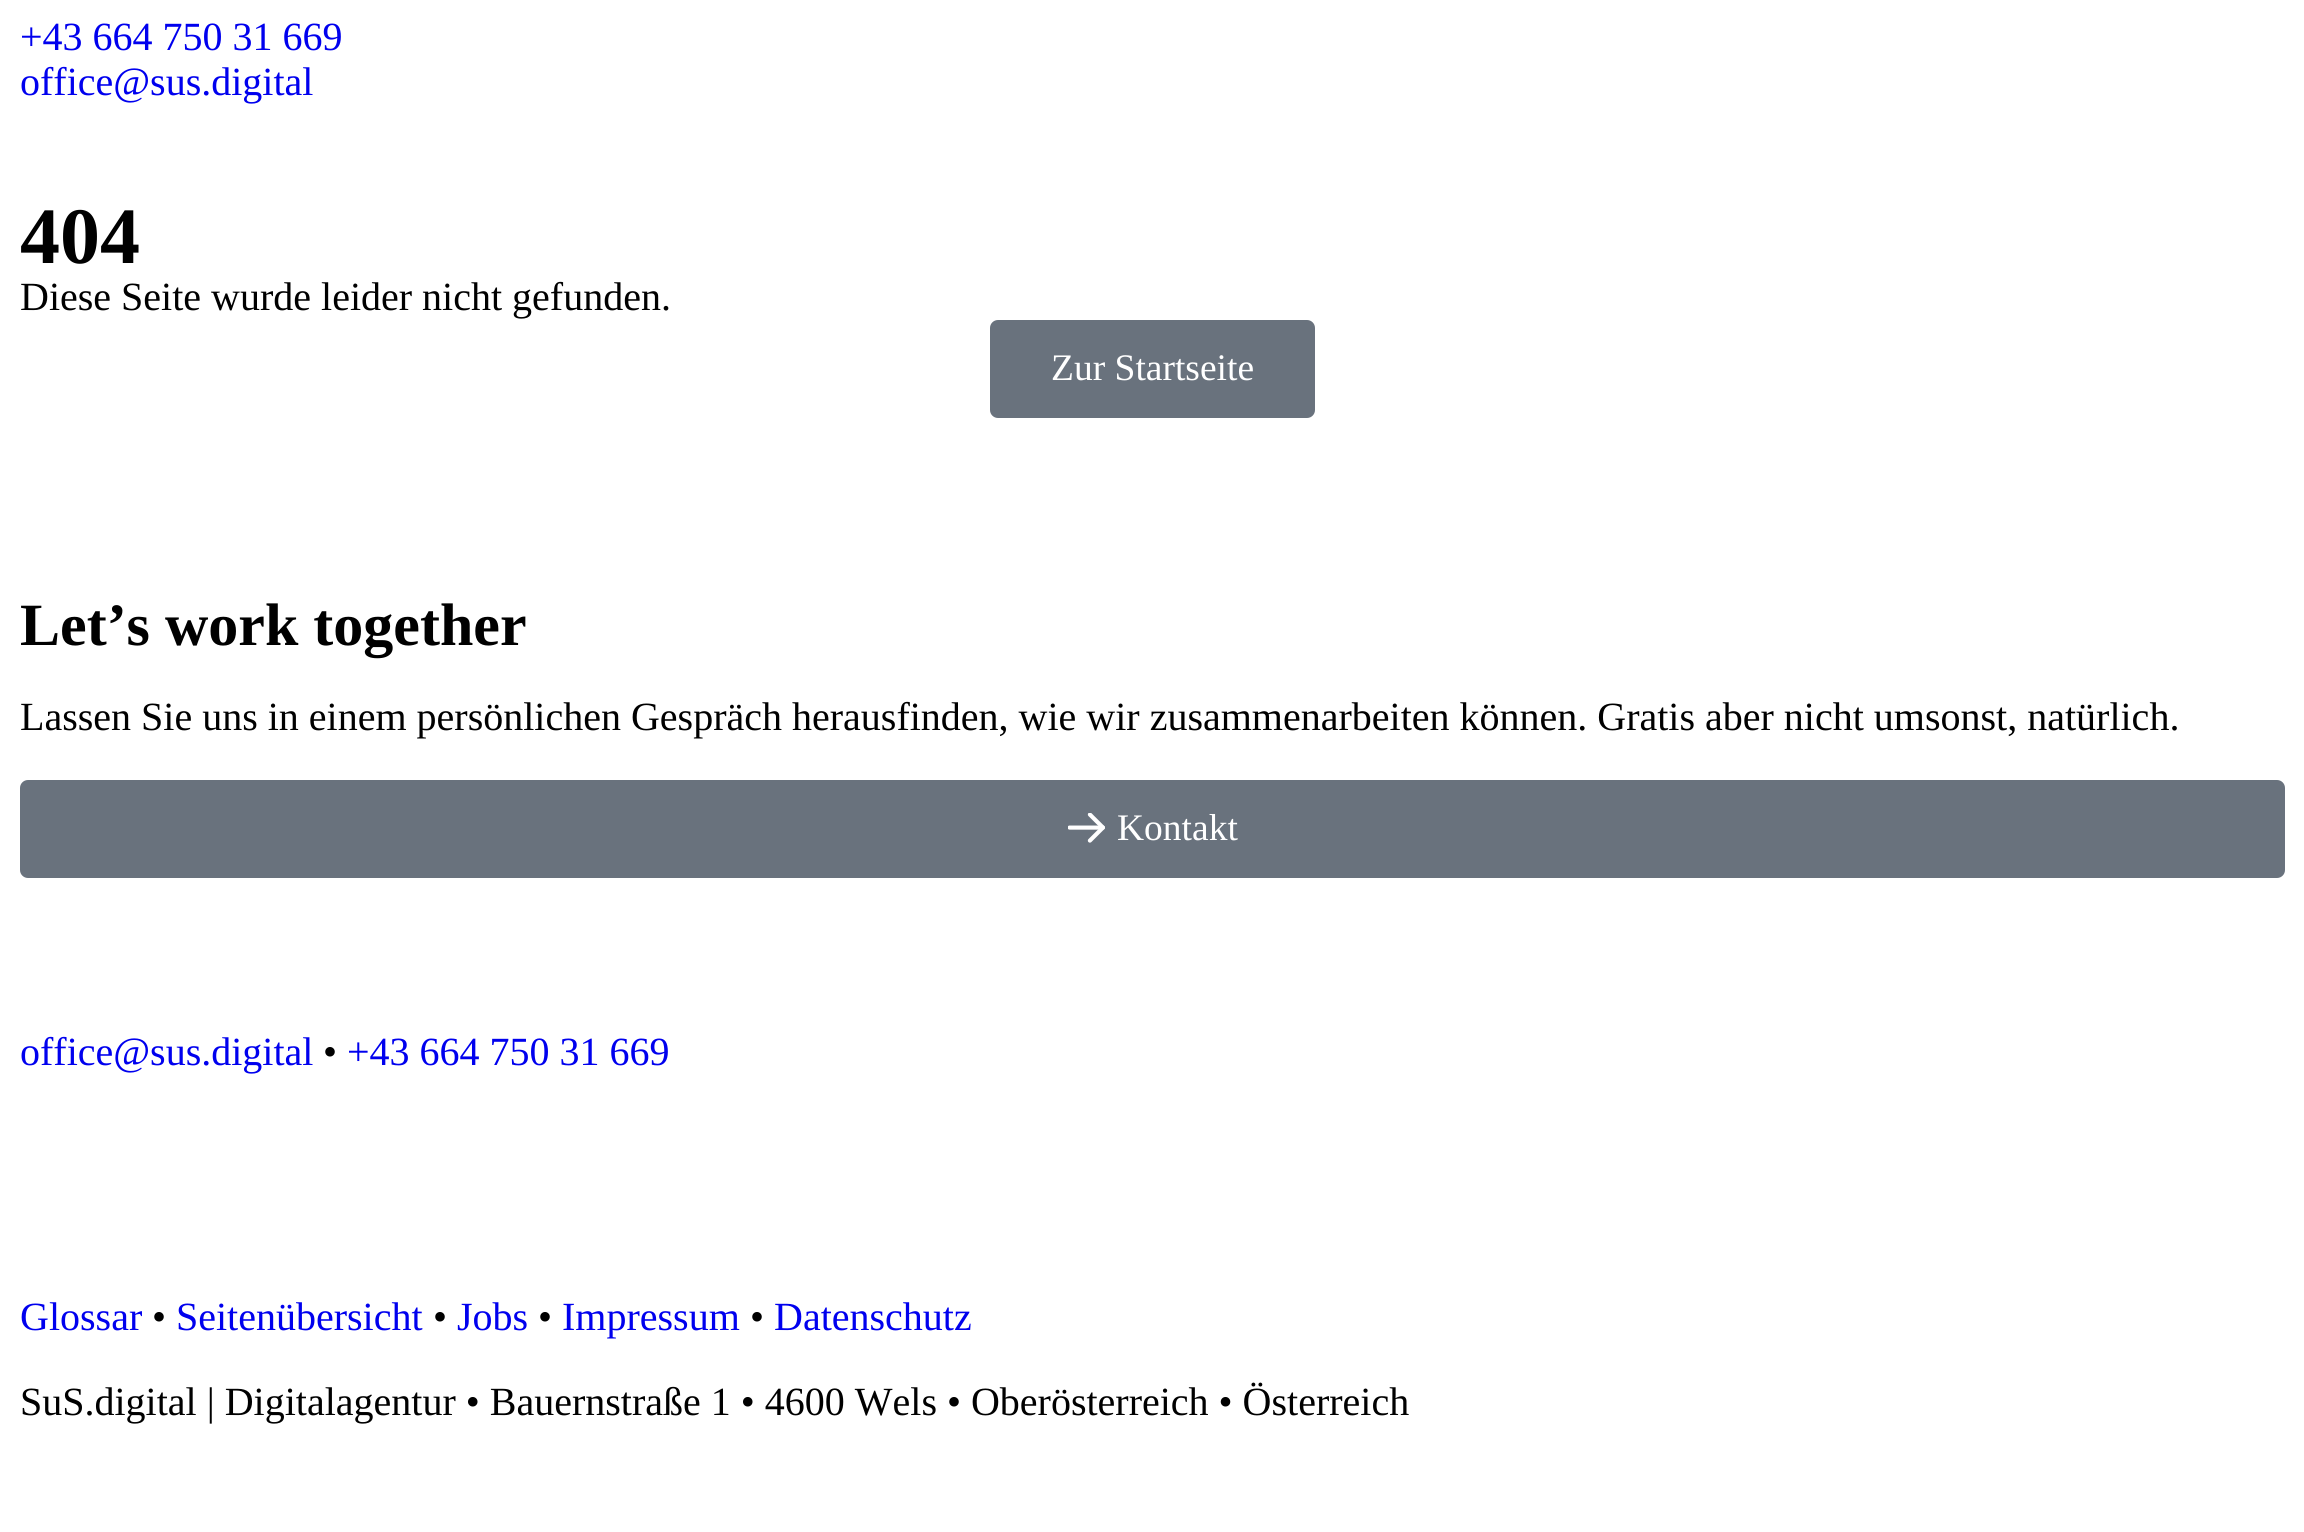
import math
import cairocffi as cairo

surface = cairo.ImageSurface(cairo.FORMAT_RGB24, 2304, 1532)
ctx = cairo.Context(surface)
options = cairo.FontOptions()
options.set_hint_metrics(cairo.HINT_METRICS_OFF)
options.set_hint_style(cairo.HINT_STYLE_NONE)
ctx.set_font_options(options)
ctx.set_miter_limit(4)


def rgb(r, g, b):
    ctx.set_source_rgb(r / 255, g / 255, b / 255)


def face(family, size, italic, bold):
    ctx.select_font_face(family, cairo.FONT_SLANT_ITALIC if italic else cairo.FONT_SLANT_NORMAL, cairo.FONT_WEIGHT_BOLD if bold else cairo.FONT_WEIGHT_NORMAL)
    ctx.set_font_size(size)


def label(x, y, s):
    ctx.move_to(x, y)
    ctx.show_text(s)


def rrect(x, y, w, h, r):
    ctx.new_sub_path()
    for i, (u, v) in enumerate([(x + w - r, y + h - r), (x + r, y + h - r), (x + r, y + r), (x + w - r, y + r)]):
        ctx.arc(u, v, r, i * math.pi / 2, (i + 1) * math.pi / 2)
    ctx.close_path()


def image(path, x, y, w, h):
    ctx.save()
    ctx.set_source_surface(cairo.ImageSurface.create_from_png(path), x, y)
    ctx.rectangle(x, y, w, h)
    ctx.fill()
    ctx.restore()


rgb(255, 255, 255)
ctx.paint()
face('Liberation Serif', 40, 0, 0)
rgb(0, 0, 238)
label(20, 50, '+43 664 750 31 669')
label(20, 95, 'office@sus.digital')
face('Liberation Serif', 80, 0, 1)
rgb(0, 0, 0)
label(20, 263, '404')
face('Liberation Serif', 40, 0, 0)
label(20, 310, 'Diese Seite wurde leider nicht gefunden.')
rgb(105, 114, 125)
rrect(990, 320, 325, 98, 8)
ctx.fill()
face('Liberation Serif', 37.5, 0, 0)
rgb(255, 255, 255)
label(1051, 380, 'Zur Startseite')
face('Liberation Serif', 60, 0, 1)
rgb(0, 0, 0)
label(20, 645, 'Let’s work together')
face('Liberation Serif', 40, 0, 0)
label(20, 730, 'Lassen Sie uns in einem persönlichen Gespräch herausfinden, wie wir zusammenarbeiten können. Gratis aber nicht umsonst, natürlich.')
rgb(105, 114, 125)
rrect(20, 780, 2265, 98, 8)
ctx.fill()
image('image0.png', 1068, 813, 37, 30)
face('Liberation Serif', 37.5, 0, 0)
rgb(255, 255, 255)
label(1117, 840, 'Kontakt')
face('Liberation Serif', 40, 0, 0)
rgb(0, 0, 238)
label(20, 1065, 'office@sus.digital')
rgb(0, 0, 0)
label(323, 1065, '•')
rgb(0, 0, 238)
label(347, 1065, '+43 664 750 31 669')
label(20, 1330, 'Glossar')
rgb(0, 0, 0)
label(152, 1330, '•')
rgb(0, 0, 238)
label(176, 1330, 'Seitenübersicht')
rgb(0, 0, 0)
label(433, 1330, '•')
rgb(0, 0, 238)
label(457, 1330, 'Jobs')
rgb(0, 0, 0)
label(538, 1330, '•')
rgb(0, 0, 238)
label(562, 1330, 'Impressum')
rgb(0, 0, 0)
label(750, 1330, '•')
rgb(0, 0, 238)
label(774, 1330, 'Datenschutz')
rgb(0, 0, 0)
label(20, 1415, 'SuS.digital | Digitalagentur • Bauernstraße 1 • 4600 Wels • Oberösterreich • Österreich')
surface.write_to_png('render.png')
